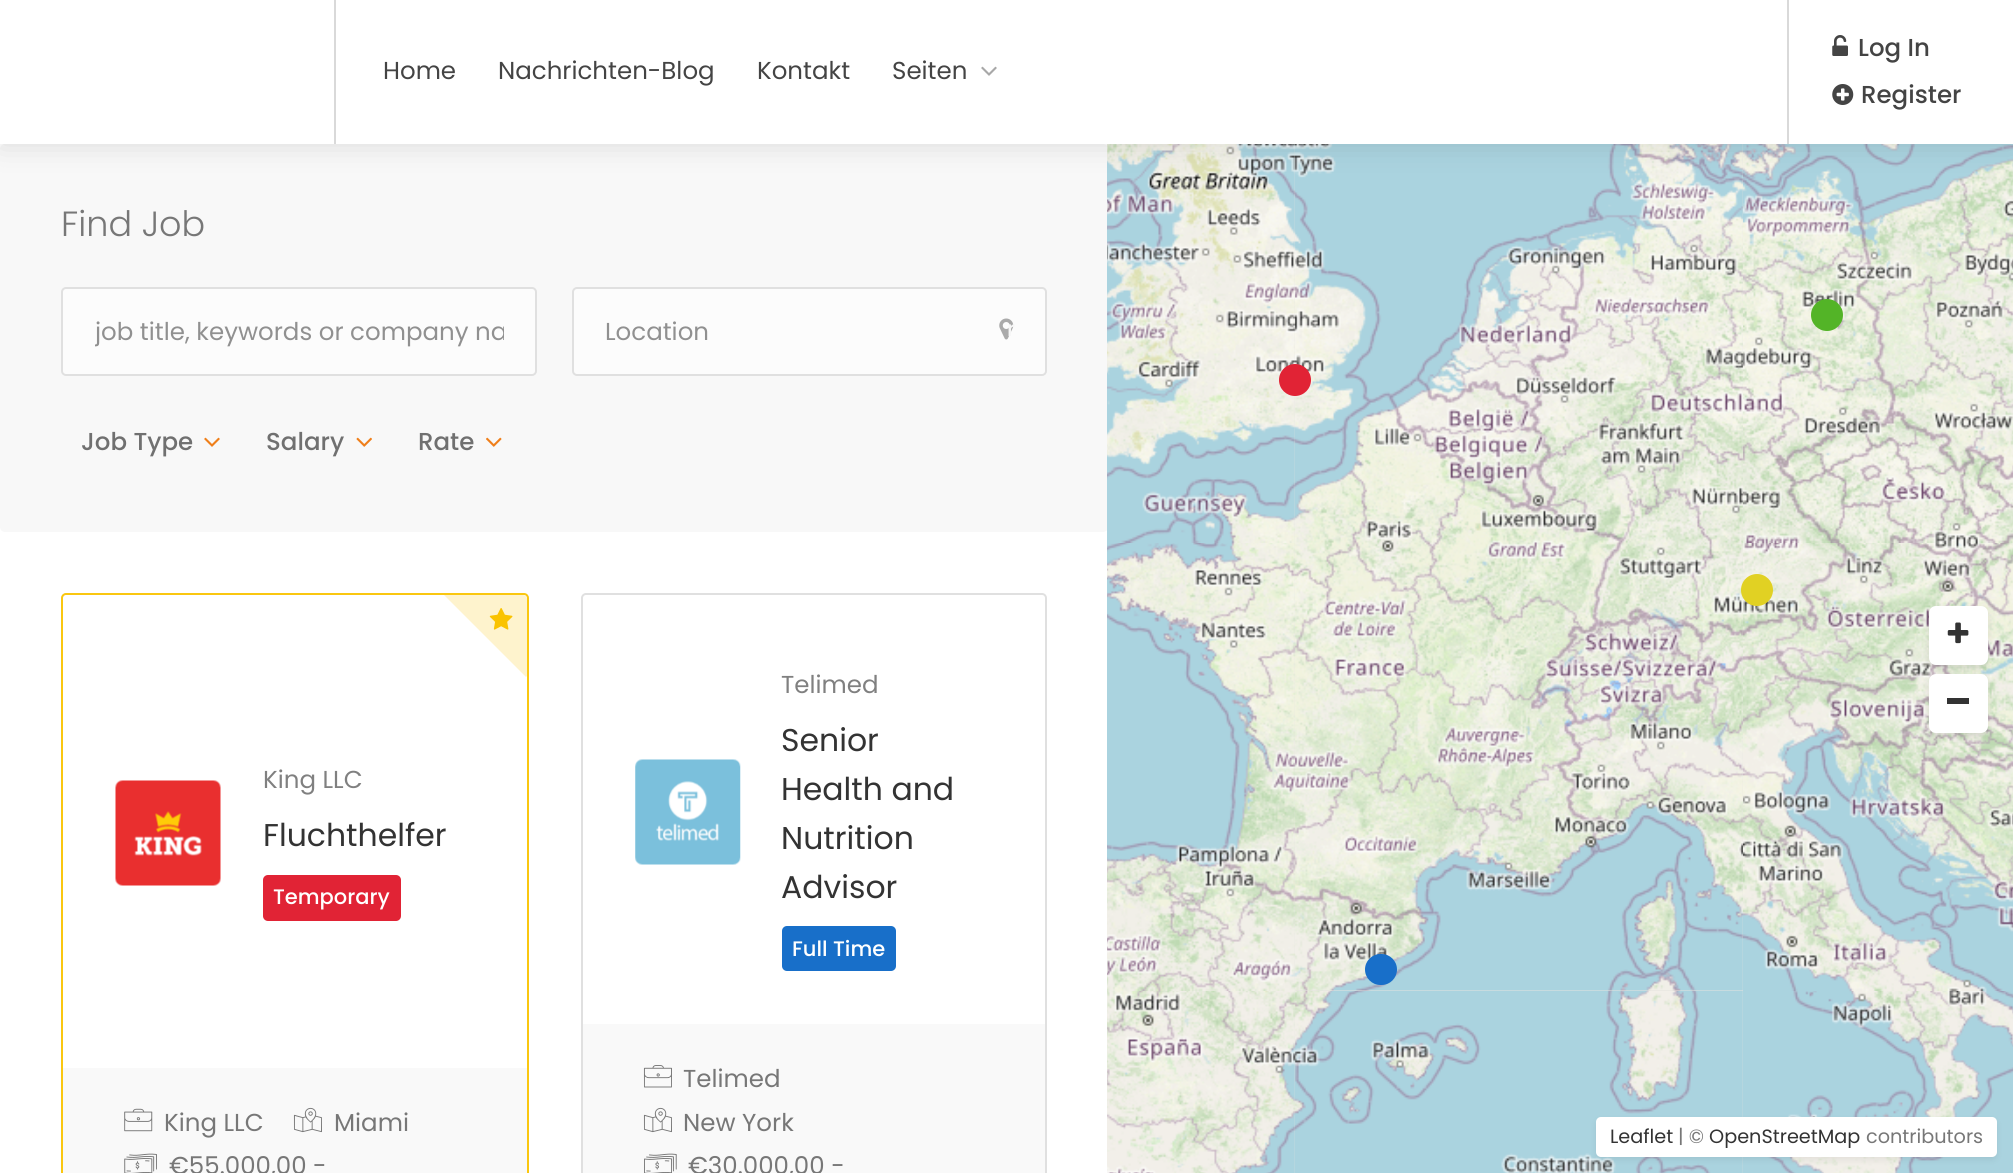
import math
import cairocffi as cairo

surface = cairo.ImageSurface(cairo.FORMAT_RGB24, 2013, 1173)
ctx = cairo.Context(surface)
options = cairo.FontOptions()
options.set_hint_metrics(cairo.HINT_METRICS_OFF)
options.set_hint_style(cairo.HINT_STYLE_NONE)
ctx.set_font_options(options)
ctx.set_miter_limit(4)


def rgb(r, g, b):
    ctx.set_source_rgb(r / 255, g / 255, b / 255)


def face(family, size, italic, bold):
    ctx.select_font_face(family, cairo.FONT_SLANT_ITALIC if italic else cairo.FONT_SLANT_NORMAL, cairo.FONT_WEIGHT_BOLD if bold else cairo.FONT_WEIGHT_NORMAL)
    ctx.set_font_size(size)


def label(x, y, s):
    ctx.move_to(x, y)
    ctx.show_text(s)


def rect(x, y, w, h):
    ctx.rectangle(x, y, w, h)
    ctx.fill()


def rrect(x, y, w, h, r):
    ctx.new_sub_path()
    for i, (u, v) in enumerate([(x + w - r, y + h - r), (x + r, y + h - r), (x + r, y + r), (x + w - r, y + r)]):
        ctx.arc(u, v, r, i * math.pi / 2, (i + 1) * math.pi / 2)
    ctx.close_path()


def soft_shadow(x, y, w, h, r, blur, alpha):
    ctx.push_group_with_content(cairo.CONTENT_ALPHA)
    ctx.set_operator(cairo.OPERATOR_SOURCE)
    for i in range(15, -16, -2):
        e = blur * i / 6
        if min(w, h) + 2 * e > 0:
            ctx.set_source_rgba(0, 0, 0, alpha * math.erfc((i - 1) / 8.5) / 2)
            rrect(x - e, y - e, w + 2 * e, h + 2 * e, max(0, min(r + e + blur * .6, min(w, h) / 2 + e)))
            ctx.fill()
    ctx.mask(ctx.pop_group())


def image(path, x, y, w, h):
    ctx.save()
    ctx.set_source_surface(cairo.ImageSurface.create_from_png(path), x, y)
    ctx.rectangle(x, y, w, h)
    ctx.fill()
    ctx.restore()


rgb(255, 255, 255)
ctx.paint()
rgb(248, 248, 248)
rrect(0, 144, 1108, 388, 5)
ctx.fill()
rgb(229, 227, 223)
rect(1294, 144, 449, 1029)
image('image16.png', 1295, 144, 448, 399)
image('image17.png', 1743, 144, 270, 399)
image('image19.png', 1295, 542, 449, 449)
image('image15.png', 1107, 144, 189, 399)
rgb(0, 0, 0)
soft_shadow(0, 0, 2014, 144, 0, 16, 0.12)
rgb(255, 255, 255)
rect(0, 0, 2013, 144)
rgb(217, 217, 217)
rect(334, 0, 2, 144)
face('Poppins', 24.5, 0, 0)
rgb(68, 68, 68)
label(383, 79, 'Home')
label(498, 79, 'Nachrichten-Blog')
label(757, 79, 'Kontakt')
label(892, 79, 'Seiten')
image('image0.png', 981, 66, 16, 10)
rgb(217, 217, 217)
rect(1787, 0, 2, 144)
image('image1.png', 1832, 35, 16, 21)
face('Poppins Medium', 24.5, 0, 0)
rgb(68, 68, 68)
label(1858, 56, 'Log In')
image('image2.png', 1832, 84, 22, 21)
label(1861, 103, 'Register')
face('Poppins Light', 35, 0, 0)
rgb(119, 119, 119)
label(61, 236, 'Find Job')
rgb(252, 252, 252)
rrect(62, 288, 474, 87, 4)
ctx.fill_preserve()
rgb(224, 224, 224)
ctx.stroke()
ctx.save()
ctx.rectangle(95, 313, 409, 37)
ctx.clip()
face('Poppins', 24.5, 0, 0)
rgb(144, 144, 144)
label(95, 340, 'job title, keywords or company na')
ctx.restore()
rgb(252, 252, 252)
rrect(573, 288, 473, 87, 4)
ctx.fill_preserve()
rgb(224, 224, 224)
ctx.stroke()
face('Poppins', 24.5, 0, 0)
rgb(144, 144, 144)
label(605, 340, 'Location')
image('image3.png', 999, 318, 15, 22)
face('Poppins Medium', 21, 0, 0)
rgb(247, 247, 247)
label(1007, 336, 'r')
face('Poppins Medium', 24.5, 0, 0)
rgb(112, 112, 112)
label(81, 450, 'Job Type')
image('image4.png', 204, 437, 16, 10)
label(266, 450, 'Salary')
image('image5.png', 356, 437, 16, 10)
label(418, 450, 'Rate')
image('image6.png', 486, 437, 16, 10)
rrect(62, 594, 466, 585, 4)
rgb(250, 199, 16)
ctx.stroke()
ctx.set_source_rgba(0.98, 0.78, 0.063, 0.21)
ctx.new_path()
ctx.move_to(527, 676)
ctx.line_to(526, 677)
ctx.line_to(444, 595)
ctx.line_to(523, 595)
ctx.curve_to(525, 595, 527, 597, 527, 599)
ctx.close_path()
ctx.fill()
image('image7.png', 489, 608, 24, 22)
image('image8.png', 115, 780, 106, 106)
face('Poppins', 24.5, 0, 0)
rgb(128, 128, 128)
label(263, 788, 'King LLC')
face('Poppins', 31.5, 0, 0)
rgb(51, 51, 51)
label(263, 846, 'Fluchthelfer')
rgb(225, 35, 53)
rrect(263, 875, 138, 46, 5)
ctx.fill()
face('Poppins Medium', 21, 0, 0)
rgb(255, 255, 255)
label(273, 904, 'Temporary')
rgb(249, 249, 249)
rect(63, 1068, 464, 105)
image('image9.png', 124, 1108, 29, 24)
face('Poppins', 24.5, 0, 0)
rgb(119, 119, 119)
label(164, 1131, 'King LLC')
image('image10.png', 293, 1107, 29, 26)
label(334, 1131, 'Miami')
image('image11.png', 124, 1153, 33, 20)
label(169, 1174, '€55.000,00 -')
rrect(582, 594, 464, 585, 4)
rgb(224, 224, 224)
ctx.stroke()
image('image12.png', 635, 759, 106, 106)
rgb(128, 128, 128)
label(781, 693, 'Telimed')
face('Poppins', 31.5, 0, 0)
rgb(51, 51, 51)
label(781, 751, 'Senior')
label(781, 800, 'Health and')
label(781, 849, 'Nutrition')
label(781, 898, 'Advisor')
rgb(24, 111, 201)
rrect(782, 926, 114, 45, 5)
ctx.fill()
face('Poppins Medium', 21, 0, 0)
rgb(255, 255, 255)
label(792, 956, 'Full Time')
rgb(249, 249, 249)
rect(583, 1024, 462, 149)
image('image13.png', 643, 1065, 29, 23)
face('Poppins', 24.5, 0, 0)
rgb(119, 119, 119)
label(683, 1087, 'Telimed')
image('image10.png', 643, 1107, 29, 26)
label(683, 1131, 'New York')
image('image14.png', 644, 1153, 33, 20)
label(688, 1174, '€30.000,00 -')
image('image18.png', 1107, 543, 189, 448)
image('image20.png', 1743, 543, 270, 448)
image('image22.png', 1295, 991, 448, 182)
image('image21.png', 1107, 991, 189, 182)
image('image23.png', 1743, 991, 270, 182)
rgb(83, 180, 39)
ctx.arc(1827, 315, 16, 0, 2 * math.pi)
ctx.fill()
rgb(225, 35, 53)
ctx.arc(1295, 380, 16, 0, 2 * math.pi)
ctx.fill()
rgb(225, 209, 35)
ctx.arc(1757, 590, 16, 0, 2 * math.pi)
ctx.fill()
rgb(24, 111, 201)
rrect(1365, 954, 32, 31, 15.5)
ctx.fill()
rgb(0, 0, 0)
soft_shadow(1929, 609, 59, 60, 7, 3.5, 0.1)
rgb(255, 255, 255)
rrect(1929, 606, 59, 59, 7)
ctx.fill()
image('image24.png', 1947, 622, 22, 22)
rgb(0, 0, 0)
soft_shadow(1929, 677, 59, 60, 7, 3.5, 0.1)
rgb(255, 255, 255)
rrect(1929, 674, 59, 59, 7)
ctx.fill()
rgb(51, 51, 51)
rect(1947, 698, 22, 6)
rgb(0, 0, 0)
soft_shadow(1596, 1120, 401, 40, 5, 3.5, 0.07)
rgb(255, 255, 255)
rrect(1596, 1117, 401, 40, 5)
ctx.fill()
face('Poppins', 19.25, 0, 0)
rgb(51, 51, 51)
label(1610, 1143, 'Leaflet')
rgb(119, 119, 119)
label(1678, 1143, '| ©')
rgb(51, 51, 51)
label(1709, 1143, 'OpenStreetMap')
rgb(119, 119, 119)
label(1866, 1143, 'contributors')
surface.write_to_png('render.png')
